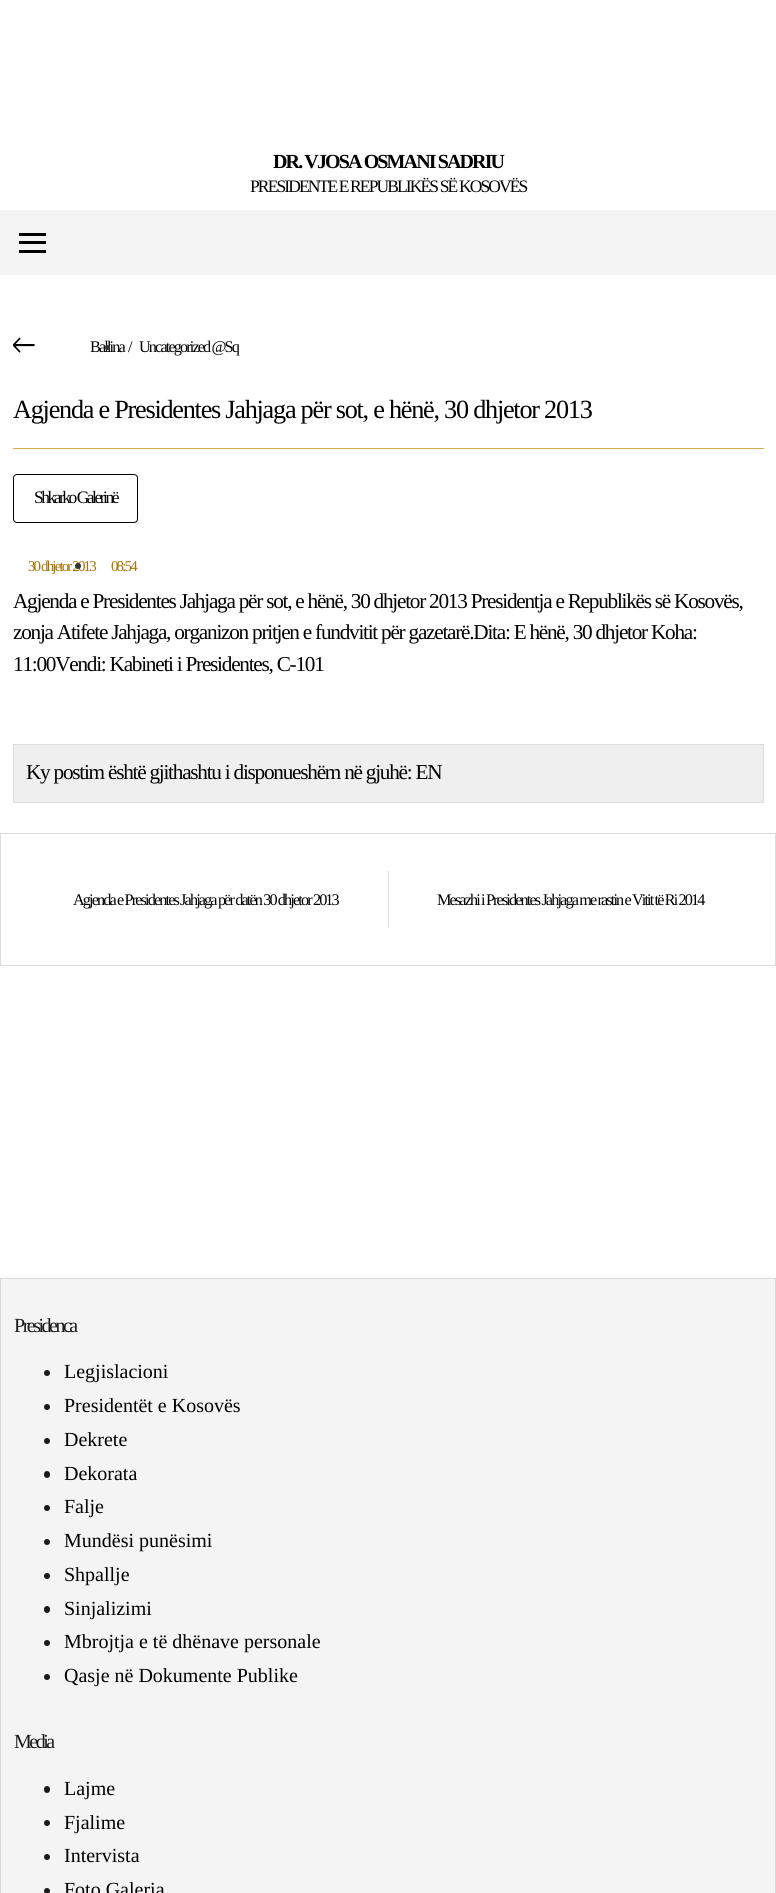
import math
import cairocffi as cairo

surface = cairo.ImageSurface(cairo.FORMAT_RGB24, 776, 1893)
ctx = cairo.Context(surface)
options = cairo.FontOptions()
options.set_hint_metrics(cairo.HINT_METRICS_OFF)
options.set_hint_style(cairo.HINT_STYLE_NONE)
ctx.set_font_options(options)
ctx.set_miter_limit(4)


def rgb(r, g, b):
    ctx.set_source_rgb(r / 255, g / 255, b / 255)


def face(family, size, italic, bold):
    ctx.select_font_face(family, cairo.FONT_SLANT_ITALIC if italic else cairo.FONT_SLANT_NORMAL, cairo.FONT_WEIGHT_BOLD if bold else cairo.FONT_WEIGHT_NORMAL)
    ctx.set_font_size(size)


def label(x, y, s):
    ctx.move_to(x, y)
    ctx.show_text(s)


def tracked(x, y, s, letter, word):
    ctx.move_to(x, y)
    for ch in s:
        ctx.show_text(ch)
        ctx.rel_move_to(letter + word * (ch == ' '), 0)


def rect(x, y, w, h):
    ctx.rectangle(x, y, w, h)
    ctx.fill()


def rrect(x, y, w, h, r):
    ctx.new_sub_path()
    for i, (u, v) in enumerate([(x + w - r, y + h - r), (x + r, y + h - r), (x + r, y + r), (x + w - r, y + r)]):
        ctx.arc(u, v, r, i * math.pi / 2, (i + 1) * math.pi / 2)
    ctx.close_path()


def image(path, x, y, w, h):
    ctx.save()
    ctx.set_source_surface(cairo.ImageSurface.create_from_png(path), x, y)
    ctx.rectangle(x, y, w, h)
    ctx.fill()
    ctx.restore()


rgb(255, 255, 255)
ctx.paint()
face('Liberation Serif', 20, 0, 1)
rgb(0, 0, 0)
tracked(273, 168, 'DR. VJOSA OSMANI SADRIU', -1.88, 0)
face('Liberation Serif', 17.5, 0, 0)
tracked(250, 192, 'PRESIDENTE E REPUBLIKËS SË KOSOVËS', -1.88, 0)
rgb(244, 244, 244)
rect(0, 210, 776, 65)
rgb(0, 0, 0)
rect(19, 241, 27, 3)
rect(19, 233, 27, 3)
rect(19, 250, 27, 3)
image('image0.png', 13, 337, 22, 16)
face('Liberation Serif', 16.25, 0, 0)
tracked(90, 352, 'Ballina', -1.88, 0)
rgb(51, 51, 51)
ctx.new_path()
ctx.arc(107.5, 347.5, 2.5, 0, 2 * math.pi)
ctx.fill()
rgb(0, 0, 0)
tracked(128, 352, '/', -1.88, 0)
tracked(139, 352, 'Uncategorized @Sq', -1.88, 0)
rgb(212, 171, 82)
rect(13, 448, 751, 1)
face('Liberation Serif', 26.25, 0, 0)
rgb(0, 0, 0)
tracked(13, 418, 'Agjenda e Presidentes Jahjaga për sot, e hënë, 30 dhjetor 2013', -1.25, 0)
rrect(13.5, 474.5, 124, 48, 3.5)
ctx.set_line_width(1)
ctx.stroke()
face('Liberation Serif', 17.5, 0, 0)
tracked(34, 503, 'Shkarko Galerinë', -2.5, 0)
face('Liberation Serif', 15, 0, 0)
rgb(168, 113, 0)
tracked(28, 571, '30 dhjetor 2013', -1.88, 0)
rgb(51, 51, 51)
ctx.new_path()
ctx.arc(78, 566, 3, 0, 2 * math.pi)
ctx.fill()
rgb(168, 113, 0)
tracked(111, 571, '08:54', -1.88, 0)
face('Liberation Serif', 21.25, 0, 0)
rgb(0, 0, 0)
tracked(13, 608, 'Agjenda e Presidentes Jahjaga për sot, e hënë, 30 dhjetor 2013 Presidentja e Republikës së Kosovës,', -1.25, 0)
tracked(13, 639, 'zonja Atifete Jahjaga, organizon pritjen e fundvitit për gazetarë.Dita: E hënë, 30 dhjetor Koha:', -1.25, 0)
tracked(13, 671, '11:00Vendi: Kabineti i Presidentes, C-101', -1.25, 0)
rgb(239, 239, 239)
ctx.rectangle(13.5, 744.5, 750, 58)
ctx.fill_preserve()
rgb(221, 221, 221)
ctx.stroke()
rgb(0, 0, 0)
tracked(26, 779, 'Ky postim është gjithashtu i disponueshëm në gjuhë: EN', -1.25, 0)
ctx.rectangle(0.5, 833.5, 775, 132)
rgb(221, 221, 221)
ctx.stroke()
face('Liberation Serif', 16.25, 0, 0)
rgb(0, 0, 0)
tracked(73, 905, 'Agjenda e Presidentes Jahjaga për datën 30 dhjetor 2013', -1.88, 0)
rgb(222, 222, 222)
rect(388, 871, 1, 57)
rgb(0, 0, 0)
tracked(437, 905, 'Mesazhi i Presidentes Jahjaga me rastin e Vitit të Ri 2014', -1.88, 0)
rgb(244, 244, 244)
ctx.rectangle(0.5, 1278.5, 775, 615)
ctx.fill_preserve()
rgb(219, 219, 219)
ctx.stroke()
face('Liberation Serif', 20, 0, 0)
rgb(26, 26, 26)
tracked(14, 1332, 'Presidenca', -2.5, 0)
ctx.new_path()
ctx.arc(47, 1373, 3, 0, 2 * math.pi)
ctx.fill()
rgb(0, 0, 0)
label(64, 1378, 'Legjislacioni')
rgb(26, 26, 26)
ctx.new_path()
ctx.arc(47, 1407, 3, 0, 2 * math.pi)
ctx.fill()
rgb(0, 0, 0)
label(64, 1412, 'Presidentët e Kosovës')
rgb(26, 26, 26)
ctx.new_path()
ctx.arc(47, 1441, 3, 0, 2 * math.pi)
ctx.fill()
rgb(0, 0, 0)
label(64, 1446, 'Dekrete')
rgb(26, 26, 26)
rrect(44, 1471, 6, 7, 3)
ctx.fill()
rgb(0, 0, 0)
label(64, 1480, 'Dekorata')
rgb(26, 26, 26)
ctx.new_path()
ctx.arc(47, 1508, 3, 0, 2 * math.pi)
ctx.fill()
rgb(0, 0, 0)
label(64, 1513, 'Falje')
rgb(26, 26, 26)
ctx.new_path()
ctx.arc(47, 1542, 3, 0, 2 * math.pi)
ctx.fill()
rgb(0, 0, 0)
label(64, 1547, 'Mundësi punësimi')
rgb(26, 26, 26)
ctx.new_path()
ctx.arc(47, 1576, 3, 0, 2 * math.pi)
ctx.fill()
rgb(0, 0, 0)
label(64, 1581, 'Shpallje')
rgb(26, 26, 26)
rrect(44, 1606, 6, 7, 3)
ctx.fill()
rgb(0, 0, 0)
label(64, 1615, 'Sinjalizimi')
rgb(26, 26, 26)
ctx.new_path()
ctx.arc(47, 1643, 3, 0, 2 * math.pi)
ctx.fill()
rgb(0, 0, 0)
label(64, 1648, 'Mbrojtja e të dhënave personale')
rgb(26, 26, 26)
ctx.new_path()
ctx.arc(47, 1677, 3, 0, 2 * math.pi)
ctx.fill()
rgb(0, 0, 0)
label(64, 1682, 'Qasje në Dokumente Publike')
rgb(26, 26, 26)
tracked(14, 1748, 'Media', -2.5, 0)
rrect(44, 1786, 6, 7, 3)
ctx.fill()
rgb(0, 0, 0)
label(64, 1795, 'Lajme')
rgb(26, 26, 26)
ctx.new_path()
ctx.arc(47, 1823, 3, 0, 2 * math.pi)
ctx.fill()
rgb(0, 0, 0)
label(64, 1829, 'Fjalime')
rgb(26, 26, 26)
ctx.new_path()
ctx.arc(47, 1857, 3, 0, 2 * math.pi)
ctx.fill()
rgb(0, 0, 0)
label(64, 1862, 'Intervista')
rgb(26, 26, 26)
ctx.new_path()
ctx.arc(47, 1891, 3, 0, 2 * math.pi)
ctx.fill()
rgb(0, 0, 0)
label(64, 1896, 'Foto Galeria')
surface.write_to_png('render.png')
